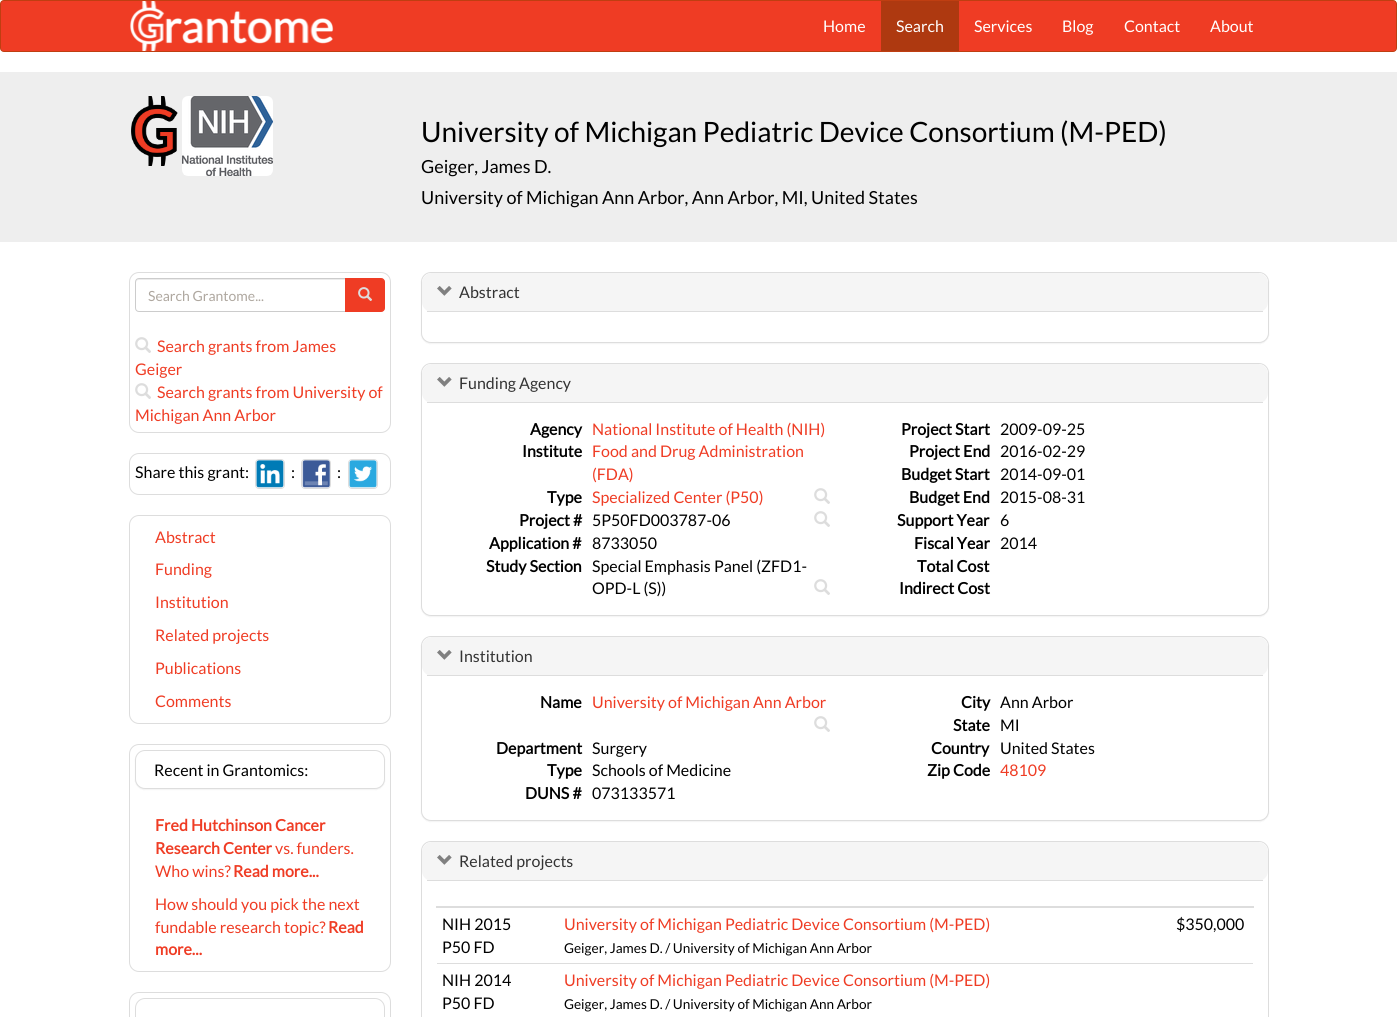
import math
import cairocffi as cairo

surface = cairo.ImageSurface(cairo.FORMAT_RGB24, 1397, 1017)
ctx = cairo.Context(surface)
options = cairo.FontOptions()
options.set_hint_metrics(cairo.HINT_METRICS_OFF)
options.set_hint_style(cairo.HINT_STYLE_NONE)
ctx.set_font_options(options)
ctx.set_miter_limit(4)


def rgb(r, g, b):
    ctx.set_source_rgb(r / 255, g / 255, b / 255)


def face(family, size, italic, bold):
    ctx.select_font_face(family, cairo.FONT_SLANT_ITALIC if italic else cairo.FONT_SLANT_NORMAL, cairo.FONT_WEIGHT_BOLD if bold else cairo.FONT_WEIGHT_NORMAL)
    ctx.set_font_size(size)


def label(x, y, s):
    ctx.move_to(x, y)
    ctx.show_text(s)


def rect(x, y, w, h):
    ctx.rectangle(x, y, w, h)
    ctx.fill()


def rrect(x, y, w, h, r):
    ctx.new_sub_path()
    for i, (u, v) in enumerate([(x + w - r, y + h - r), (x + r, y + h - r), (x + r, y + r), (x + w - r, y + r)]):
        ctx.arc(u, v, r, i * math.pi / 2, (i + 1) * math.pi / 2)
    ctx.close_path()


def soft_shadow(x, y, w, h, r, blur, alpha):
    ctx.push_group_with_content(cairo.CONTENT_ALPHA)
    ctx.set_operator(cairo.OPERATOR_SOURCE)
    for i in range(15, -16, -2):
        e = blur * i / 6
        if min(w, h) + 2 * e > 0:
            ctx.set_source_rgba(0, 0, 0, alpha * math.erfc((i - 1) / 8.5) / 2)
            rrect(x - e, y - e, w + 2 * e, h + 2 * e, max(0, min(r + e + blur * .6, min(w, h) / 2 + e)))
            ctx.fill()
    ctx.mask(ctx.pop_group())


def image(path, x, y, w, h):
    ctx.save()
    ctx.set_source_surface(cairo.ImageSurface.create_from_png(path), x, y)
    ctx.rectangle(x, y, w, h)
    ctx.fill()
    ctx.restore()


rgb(255, 255, 255)
ctx.paint()
rgb(239, 60, 36)
rrect(0.5, 0.5, 1396, 51, 3.5)
ctx.fill_preserve()
rgb(191, 62, 17)
ctx.set_line_width(1)
ctx.stroke()
image('image0.png', 130, 1, 204, 50)
face('Lato', 16, 0, 0)
rgb(255, 255, 255)
label(823, 32, 'Home')
rgb(174, 57, 16)
rect(881, 1, 78, 50)
rgb(255, 255, 255)
label(896, 32, 'Search')
label(974, 32, 'Services')
label(1062, 32, 'Blog')
label(1124, 32, 'Contact')
label(1210, 32, 'About')
rgb(238, 238, 238)
rect(0, 72, 1397, 170)
image('image1.png', 131, 96, 47, 70)
image('image2.png', 182, 96, 91, 80)
face('Lato', 28, 0, 0)
rgb(0, 0, 0)
label(421, 142, 'University of Michigan Pediatric Device Consortium (M-PED)')
face('Lato', 18, 0, 0)
label(421, 173, 'Geiger, James D.')
label(421, 204, 'University of Michigan Ann Arbor, Ann Arbor, MI, United States')
rrect(129.5, 272.5, 261, 160, 9.5)
rgb(221, 221, 221)
ctx.stroke()
rgb(236, 236, 236)
ctx.new_path()
ctx.move_to(139, 280)
ctx.line_to(345, 280)
ctx.line_to(345, 279)
ctx.line_to(139, 279)
ctx.curve_to(137, 279, 136, 280, 136, 282)
ctx.line_to(136, 283)
ctx.curve_to(136, 281, 137, 280, 139, 280)
ctx.close_path()
ctx.fill()
ctx.new_path()
ctx.move_to(139, 278.5)
ctx.line_to(345.5, 278.5)
ctx.line_to(345.5, 311.5)
ctx.line_to(139, 311.5)
ctx.curve_to(137, 311.5, 135.5, 310, 135.5, 308)
ctx.line_to(135.5, 282)
ctx.curve_to(135.5, 280, 137, 278.5, 139, 278.5)
ctx.close_path()
rgb(204, 204, 204)
ctx.stroke()
face('Lato', 14, 0, 0)
rgb(174, 167, 159)
label(148, 301, 'Search Grantome...')
rgb(239, 60, 36)
ctx.new_path()
ctx.move_to(345.5, 278.5)
ctx.line_to(381, 278.5)
ctx.curve_to(383, 278.5, 384.5, 280, 384.5, 282)
ctx.line_to(384.5, 308)
ctx.curve_to(384.5, 310, 383, 311.5, 381, 311.5)
ctx.line_to(345.5, 311.5)
ctx.close_path()
ctx.fill_preserve()
ctx.stroke()
image('image3.png', 358, 287, 15, 14)
image('image4.png', 135, 337, 16, 16)
face('Lato', 16, 0, 0)
label(157, 352, 'Search grants from James')
label(135, 375, 'Geiger')
image('image4.png', 135, 383, 16, 16)
label(157, 398, 'Search grants from University of')
label(135, 421, 'Michigan Ann Arbor')
rrect(129.5, 453.5, 261, 41, 9.5)
rgb(221, 221, 221)
ctx.stroke()
rrect(255.5, 459.5, 29, 29, 3.5)
ctx.stroke()
rrect(301.5, 459.5, 29, 29, 3.5)
ctx.stroke()
rrect(348.5, 459.5, 29, 29, 3.5)
ctx.stroke()
rgb(0, 0, 0)
label(135, 478, 'Share this grant:')
image('image5.png', 256, 460, 28, 28)
label(291, 478, ':')
image('image6.png', 302, 460, 28, 28)
label(337, 478, ':')
image('image7.png', 349, 460, 28, 28)
rrect(129.5, 515.5, 261, 208, 9.5)
rgb(221, 221, 221)
ctx.stroke()
rgb(239, 60, 36)
label(155, 543, 'Abstract')
label(155, 575, 'Funding')
label(155, 608, 'Institution')
label(155, 641, 'Related projects')
label(155, 674, 'Publications')
label(155, 707, 'Comments')
rrect(129.5, 744.5, 261, 227, 9.5)
rgb(221, 221, 221)
ctx.stroke()
rgb(0, 0, 0)
soft_shadow(135, 751, 250, 39, 10, 0.5, 0.05)
rgb(255, 255, 255)
rrect(135.5, 750.5, 249, 38, 9.5)
ctx.fill_preserve()
rgb(221, 221, 221)
ctx.stroke()
rgb(0, 0, 0)
label(154, 776, 'Recent in Grantomics:')
face('Lato', 16, 0, 1)
rgb(239, 60, 36)
label(155, 831, 'Fred Hutchinson Cancer')
label(155, 854, 'Research Center')
face('Lato', 16, 0, 0)
label(275, 854, 'vs. funders.')
label(155, 877, 'Who wins?')
face('Lato', 16, 0, 1)
label(233, 877, 'Read more...')
face('Lato', 16, 0, 0)
label(155, 910, 'How should you pick the next')
label(155, 933, 'fundable research topic?')
face('Lato', 16, 0, 1)
label(328, 933, 'Read')
label(155, 955, 'more...')
rrect(129.5, 992.5, 261, 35, 9.5)
rgb(221, 221, 221)
ctx.stroke()
rrect(135.5, 998.5, 249, 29, 9.5)
ctx.stroke()
rgb(0, 0, 0)
soft_shadow(421, 273, 848, 71, 10, 0.5, 0.05)
rgb(255, 255, 255)
rrect(421.5, 272.5, 847, 70, 9.5)
ctx.fill_preserve()
rgb(221, 221, 221)
ctx.stroke()
rgb(245, 245, 245)
rrect(422, 273, 846, 39, 10)
ctx.fill()
rgb(221, 221, 221)
rect(427, 311, 836, 1)
image('image8.png', 437, 286, 15, 10)
face('Lato', 16, 0, 0)
rgb(51, 51, 51)
label(459, 298, 'Abstract')
rgb(0, 0, 0)
soft_shadow(421, 364, 848, 253, 10, 0.5, 0.05)
rgb(255, 255, 255)
rrect(421.5, 363.5, 847, 252, 9.5)
ctx.fill_preserve()
rgb(221, 221, 221)
ctx.stroke()
rgb(245, 245, 245)
rrect(422, 364, 846, 39, 10)
ctx.fill()
rgb(221, 221, 221)
rect(427, 402, 836, 1)
image('image8.png', 437, 377, 15, 10)
rgb(51, 51, 51)
label(459, 389, 'Funding Agency')
face('Lato', 16, 0, 1)
rgb(0, 0, 0)
label(530, 435, 'Agency')
face('Lato', 16, 0, 0)
rgb(239, 60, 36)
label(592, 435, 'National Institute of Health (NIH)')
face('Lato', 16, 0, 1)
rgb(0, 0, 0)
label(522, 457, 'Institute')
face('Lato', 16, 0, 0)
rgb(239, 60, 36)
label(592, 457, 'Food and Drug Administration')
label(592, 480, '(FDA)')
face('Lato', 16, 0, 1)
rgb(0, 0, 0)
label(547, 503, 'Type')
face('Lato', 16, 0, 0)
rgb(239, 60, 36)
label(592, 503, 'Specialized Center (P50)')
image('image4.png', 814, 488, 16, 16)
face('Lato', 16, 0, 1)
rgb(0, 0, 0)
label(519, 526, 'Project #')
face('Lato', 16, 0, 0)
label(592, 526, '5P50FD003787-06')
image('image4.png', 814, 511, 16, 16)
face('Lato', 16, 0, 1)
label(489, 549, 'Application #')
face('Lato', 16, 0, 0)
label(592, 549, '8733050')
face('Lato', 16, 0, 1)
label(486, 572, 'Study Section')
face('Lato', 16, 0, 0)
label(592, 572, 'Special Emphasis Panel (ZFD1-')
label(592, 594, 'OPD-L (S))')
image('image4.png', 814, 579, 16, 16)
face('Lato', 16, 0, 1)
label(901, 435, 'Project Start')
face('Lato', 16, 0, 0)
label(1000, 435, '2009-09-25')
face('Lato', 16, 0, 1)
label(909, 457, 'Project End')
face('Lato', 16, 0, 0)
label(1000, 457, '2016-02-29')
face('Lato', 16, 0, 1)
label(901, 480, 'Budget Start')
face('Lato', 16, 0, 0)
label(1000, 480, '2014-09-01')
face('Lato', 16, 0, 1)
label(909, 503, 'Budget End')
face('Lato', 16, 0, 0)
label(1000, 503, '2015-08-31')
face('Lato', 16, 0, 1)
label(897, 526, 'Support Year')
face('Lato', 16, 0, 0)
label(1000, 526, '6')
face('Lato', 16, 0, 1)
label(914, 549, 'Fiscal Year')
face('Lato', 16, 0, 0)
label(1000, 549, '2014')
face('Lato', 16, 0, 1)
label(917, 572, 'Total Cost')
label(899, 594, 'Indirect Cost')
rgb(0, 0, 0)
soft_shadow(421, 637, 848, 185, 10, 0.5, 0.05)
rgb(255, 255, 255)
rrect(421.5, 636.5, 847, 184, 9.5)
ctx.fill_preserve()
rgb(221, 221, 221)
ctx.stroke()
rgb(245, 245, 245)
rrect(422, 637, 846, 39, 10)
ctx.fill()
rgb(221, 221, 221)
rect(427, 675, 836, 1)
image('image8.png', 437, 650, 15, 10)
face('Lato', 16, 0, 0)
rgb(51, 51, 51)
label(459, 662, 'Institution')
face('Lato', 16, 0, 1)
rgb(0, 0, 0)
label(540, 708, 'Name')
face('Lato', 16, 0, 0)
rgb(239, 60, 36)
label(592, 708, 'University of Michigan Ann Arbor')
image('image4.png', 814, 716, 16, 16)
face('Lato', 16, 0, 1)
rgb(0, 0, 0)
label(496, 754, 'Department')
face('Lato', 16, 0, 0)
label(592, 754, 'Surgery')
face('Lato', 16, 0, 1)
label(547, 776, 'Type')
face('Lato', 16, 0, 0)
label(592, 776, 'Schools of Medicine')
face('Lato', 16, 0, 1)
label(525, 799, 'DUNS #')
face('Lato', 16, 0, 0)
label(592, 799, '073133571')
face('Lato', 16, 0, 1)
label(961, 708, 'City')
face('Lato', 16, 0, 0)
label(1000, 708, 'Ann Arbor')
face('Lato', 16, 0, 1)
label(953, 731, 'State')
face('Lato', 16, 0, 0)
label(1000, 731, 'MI')
face('Lato', 16, 0, 1)
label(931, 754, 'Country')
face('Lato', 16, 0, 0)
label(1000, 754, 'United States')
face('Lato', 16, 0, 1)
label(927, 776, 'Zip Code')
face('Lato', 16, 0, 0)
rgb(239, 60, 36)
label(1000, 776, '48109')
rrect(421.5, 841.5, 847, 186, 9.5)
rgb(221, 221, 221)
ctx.stroke()
rgb(245, 245, 245)
rrect(422, 842, 846, 39, 10)
ctx.fill()
rgb(221, 221, 221)
rect(427, 880, 836, 1)
image('image8.png', 437, 855, 15, 10)
rgb(51, 51, 51)
label(459, 867, 'Related projects')
rgb(221, 221, 221)
rect(436, 906, 818, 2)
rgb(0, 0, 0)
label(442, 930, 'NIH 2015')
label(442, 953, 'P50 FD')
rgb(239, 60, 36)
label(564, 930, 'University of Michigan Pediatric Device Consortium (M-PED)')
face('Lato', 13.6, 0, 0)
rgb(0, 0, 0)
label(564, 953, 'Geiger, James D. / University of Michigan Ann Arbor')
face('Lato', 16, 0, 0)
label(1176, 930, '$350,000')
rgb(221, 221, 221)
rect(437, 963, 816, 1)
rgb(0, 0, 0)
label(442, 986, 'NIH 2014')
label(442, 1009, 'P50 FD')
rgb(239, 60, 36)
label(564, 986, 'University of Michigan Pediatric Device Consortium (M-PED)')
face('Lato', 13.6, 0, 0)
rgb(0, 0, 0)
label(564, 1009, 'Geiger, James D. / University of Michigan Ann Arbor')
surface.write_to_png('render.png')
